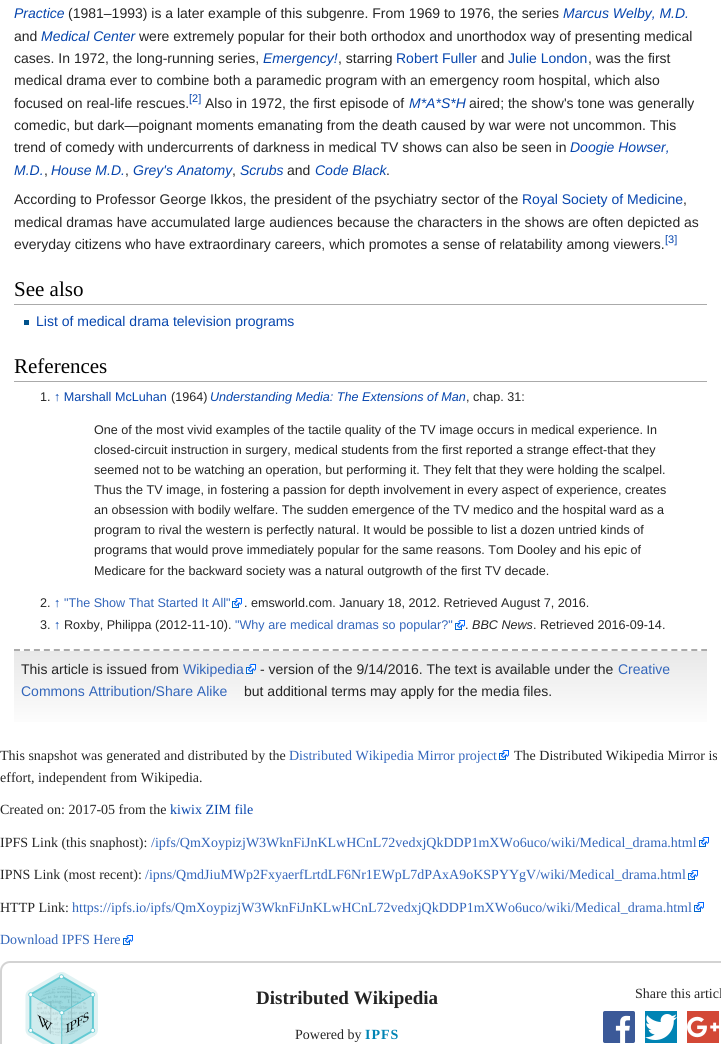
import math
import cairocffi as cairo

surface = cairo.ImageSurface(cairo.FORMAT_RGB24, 721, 1044)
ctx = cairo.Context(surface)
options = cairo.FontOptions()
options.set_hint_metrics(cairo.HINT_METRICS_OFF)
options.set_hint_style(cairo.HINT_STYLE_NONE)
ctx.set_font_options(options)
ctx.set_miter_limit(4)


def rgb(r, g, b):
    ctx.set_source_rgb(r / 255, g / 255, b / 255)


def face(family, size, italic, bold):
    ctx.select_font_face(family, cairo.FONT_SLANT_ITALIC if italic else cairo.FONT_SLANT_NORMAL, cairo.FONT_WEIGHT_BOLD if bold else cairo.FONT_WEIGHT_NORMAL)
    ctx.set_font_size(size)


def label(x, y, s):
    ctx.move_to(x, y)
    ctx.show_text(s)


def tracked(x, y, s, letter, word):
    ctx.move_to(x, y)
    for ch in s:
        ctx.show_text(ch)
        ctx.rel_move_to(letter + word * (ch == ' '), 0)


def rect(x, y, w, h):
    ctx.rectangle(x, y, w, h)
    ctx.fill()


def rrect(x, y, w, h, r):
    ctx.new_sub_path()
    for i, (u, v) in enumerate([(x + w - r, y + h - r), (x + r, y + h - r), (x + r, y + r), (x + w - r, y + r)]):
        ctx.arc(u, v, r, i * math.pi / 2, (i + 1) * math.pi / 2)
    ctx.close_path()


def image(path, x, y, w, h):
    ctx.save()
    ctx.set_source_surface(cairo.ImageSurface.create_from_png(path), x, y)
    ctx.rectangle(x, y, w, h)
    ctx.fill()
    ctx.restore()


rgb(255, 255, 255)
ctx.paint()
face('Liberation Sans', 14, 1, 0)
rgb(6, 69, 173)
label(14, 18, 'Practice')
face('Liberation Sans', 14, 0, 0)
rgb(37, 37, 37)
label(68, 18, '(1981–1993) is a later example of this subgenre. From 1969 to 1976, the series')
face('Liberation Sans', 14, 1, 0)
rgb(6, 69, 173)
label(563, 18, 'Marcus Welby, M.D.')
face('Liberation Sans', 14, 0, 0)
rgb(37, 37, 37)
label(14, 41, 'and')
face('Liberation Sans', 14, 1, 0)
rgb(6, 69, 173)
label(41, 41, 'Medical Center')
face('Liberation Sans', 14, 0, 0)
rgb(37, 37, 37)
label(139, 41, 'were extremely popular for their both orthodox and unorthodox way of presenting medical')
label(14, 63, 'cases. In 1972, the long-running series,')
face('Liberation Sans', 14, 1, 0)
rgb(6, 69, 173)
label(263, 63, 'Emergency!')
face('Liberation Sans', 14, 0, 0)
rgb(37, 37, 37)
label(338, 63, ', starring')
rgb(6, 69, 173)
label(396, 63, 'Robert Fuller')
rgb(37, 37, 37)
label(481, 63, 'and')
rgb(6, 69, 173)
label(508, 63, 'Julie London')
rgb(37, 37, 37)
label(588, 63, ', was the first')
label(14, 85, 'medical drama ever to combine both a paramedic program with an emergency room hospital, which also')
label(14, 108, 'focused on real-life rescues.')
face('Liberation Sans', 11, 0, 0)
rgb(6, 69, 173)
label(189, 102, '[2]')
face('Liberation Sans', 14, 0, 0)
rgb(37, 37, 37)
label(205, 108, 'Also in 1972, the first episode of')
face('Liberation Sans', 14, 1, 0)
rgb(6, 69, 173)
label(409, 108, 'M*A*S*H')
face('Liberation Sans', 14, 0, 0)
rgb(37, 37, 37)
label(469, 108, 'aired; the show\'s tone was generally')
label(14, 130, 'comedic, but dark—poignant moments emanating from the death caused by war were not uncommon. This')
label(14, 152, 'trend of comedy with undercurrents of darkness in medical TV shows can also be seen in')
face('Liberation Sans', 14, 1, 0)
rgb(6, 69, 173)
label(570, 152, 'Doogie Howser,')
label(14, 175, 'M.D.')
face('Liberation Sans', 14, 0, 0)
rgb(37, 37, 37)
label(44, 175, ',')
face('Liberation Sans', 14, 1, 0)
rgb(6, 69, 173)
label(51, 175, 'House M.D.')
face('Liberation Sans', 14, 0, 0)
rgb(37, 37, 37)
label(125, 175, ',')
face('Liberation Sans', 14, 1, 0)
rgb(6, 69, 173)
label(133, 175, 'Grey\'s Anatomy')
face('Liberation Sans', 14, 0, 0)
rgb(37, 37, 37)
label(232, 175, ',')
face('Liberation Sans', 14, 1, 0)
rgb(6, 69, 173)
label(240, 175, 'Scrubs')
face('Liberation Sans', 14, 0, 0)
rgb(37, 37, 37)
label(287, 175, 'and')
face('Liberation Sans', 14, 1, 0)
rgb(6, 69, 173)
label(315, 175, 'Code Black')
face('Liberation Sans', 14, 0, 0)
rgb(37, 37, 37)
label(386, 175, '.')
label(14, 204, 'According to Professor George Ikkos, the president of the psychiatry sector of the')
rgb(6, 69, 173)
label(522, 204, 'Royal Society of Medicine')
rgb(37, 37, 37)
label(683, 204, ',')
label(14, 227, 'medical dramas have accumulated large audiences because the characters in the shows are often depicted as')
label(14, 249, 'everyday citizens who have extraordinary careers, which promotes a sense of relatability among viewers.')
face('Liberation Sans', 11, 0, 0)
rgb(6, 69, 173)
label(665, 243, '[3]')
rgb(170, 170, 170)
rect(14, 304, 693, 1)
face('Liberation Serif', 21, 0, 0)
rgb(0, 0, 0)
label(14, 296, 'See also')
rgb(0, 82, 140)
rect(24, 320, 5, 5)
face('Liberation Sans', 14, 0, 0)
rgb(6, 69, 173)
label(36, 326, 'List of medical drama television programs')
rgb(170, 170, 170)
rect(14, 381, 693, 1)
face('Liberation Serif', 21, 0, 0)
rgb(0, 0, 0)
label(14, 373, 'References')
face('Liberation Sans', 12.6, 0, 0)
rgb(6, 69, 173)
label(54, 401, '↑ Marshall McLuhan')
rgb(37, 37, 37)
label(40, 401, '1.')
label(171, 401, '(1964)')
face('Liberation Sans', 12.6, 1, 0)
rgb(6, 69, 173)
label(210, 401, 'Understanding Media: The Extensions of Man')
face('Liberation Sans', 12.6, 0, 0)
rgb(37, 37, 37)
label(466, 401, ', chap. 31:')
label(94, 434, 'One of the most vivid examples of the tactile quality of the TV image occurs in medical experience. In')
label(94, 454, 'closed-circuit instruction in surgery, medical students from the first reported a strange effect-that they')
label(94, 474, 'seemed not to be watching an operation, but performing it. They felt that they were holding the scalpel.')
label(94, 494, 'Thus the TV image, in fostering a passion for depth involvement in every aspect of experience, creates')
label(94, 514, 'an obsession with bodily welfare. The sudden emergence of the TV medico and the hospital ward as a')
label(94, 534, 'program to rival the western is perfectly natural. It would be possible to list a dozen untried kinds of')
label(94, 554, 'programs that would prove immediately popular for the same reasons. Tom Dooley and his epic of')
label(94, 575, 'Medicare for the backward society was a natural outgrowth of the first TV decade.')
label(40, 607, '2.')
rgb(6, 69, 173)
label(54, 607, '↑')
rgb(51, 102, 187)
label(64, 607, '"The Show That Started It All"')
image('image0.png', 232, 598, 10, 10)
rgb(37, 37, 37)
label(244, 607, '. emsworld.com. January 18, 2012. Retrieved August 7, 2016.')
label(40, 629, '3.')
rgb(6, 69, 173)
label(54, 629, '↑')
rgb(37, 37, 37)
label(64, 629, 'Roxby, Philippa (2012-11-10).')
rgb(51, 102, 187)
label(235, 629, '"Why are medical dramas so popular?"')
image('image0.png', 455, 620, 10, 10)
rgb(37, 37, 37)
label(465, 629, '.')
face('Liberation Sans', 12.6, 1, 0)
label(472, 629, 'BBC News')
face('Liberation Sans', 12.6, 0, 0)
label(533, 629, '. Retrieved 2016-09-14.')
gradient = cairo.LinearGradient(361, 651, 361, 731)
gradient.add_color_stop_rgba(0, 0.91, 0.91, 0.91, 1)
gradient.add_color_stop_rgba(1, 1, 1, 1, 1)
ctx.set_source(gradient)
rect(14, 651, 693, 71)
ctx.new_path()
ctx.move_to(14, 650)
ctx.line_to(707, 650)
rgb(170, 170, 170)
ctx.set_dash([6, 3.96])
ctx.stroke()
face('Liberation Sans', 14, 0, 0)
rgb(37, 37, 37)
label(21, 674, 'This article is issued from')
rgb(51, 102, 187)
label(183, 674, 'Wikipedia')
image('image1.png', 246, 664, 10, 10)
rgb(37, 37, 37)
label(260, 674, '- version of the 9/14/2016. The text is available under the')
rgb(51, 102, 187)
label(618, 674, 'Creative')
label(21, 696, 'Commons Attribution/Share Alike')
rgb(37, 37, 37)
label(244, 696, 'but additional terms may apply for the media files.')
face('Liberation Serif', 14, 0, 0)
label(0, 760, 'This snapshot was generated and distributed by the')
rgb(51, 102, 187)
label(289, 760, 'Distributed Wikipedia Mirror project')
image('image0.png', 499, 750, 10, 10)
rgb(37, 37, 37)
label(514, 760, 'The Distributed Wikipedia Mirror is')
label(0, 782, 'effort, independent from Wikipedia.')
label(0, 814, 'Created on: 2017-05 from the')
rgb(6, 69, 173)
label(170, 814, 'kiwix ZIM file')
rgb(37, 37, 37)
label(0, 847, 'IPFS Link (this snaphost):')
rgb(51, 102, 187)
label(151, 847, '/ipfs/QmXoypizjW3WknFiJnKLwHCnL72vedxjQkDDP1mXWo6uco/wiki/Medical_drama.html')
image('image0.png', 699, 837, 10, 10)
rgb(37, 37, 37)
label(0, 879, 'IPNS Link (most recent):')
rgb(51, 102, 187)
label(145, 879, '/ipns/QmdJiuMWp2FxyaerfLrtdLF6Nr1EWpL7dPAxA9oKSPYYgV/wiki/Medical_drama.html')
image('image0.png', 688, 870, 10, 10)
rgb(37, 37, 37)
label(0, 912, 'HTTP Link:')
rgb(51, 102, 187)
label(72, 912, 'https://ipfs.io/ipfs/QmXoypizjW3WknFiJnKLwHCnL72vedxjQkDDP1mXWo6uco/wiki/Medical_drama.html')
image('image0.png', 694, 902, 10, 10)
label(0, 944, 'Download IPFS Here')
image('image0.png', 123, 935, 10, 10)
rrect(1, 962, 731, 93, 9)
rgb(211, 211, 211)
ctx.set_dash([])
ctx.stroke()
image('image2.png', 25, 972, 73, 72)
face('Liberation Serif', 19, 0, 1)
rgb(37, 37, 37)
label(256, 1004, 'Distributed Wikipedia')
face('Liberation Serif', 14, 0, 0)
label(295, 1039, 'Powered by')
face('Liberation Serif', 14, 0, 1)
rgb(0, 132, 180)
tracked(365, 1039, 'IPFS', 1, 0)
face('Liberation Serif', 14, 0, 0)
rgb(37, 37, 37)
label(635, 998, 'Share this articl')
image('image3.png', 603, 1011, 32, 32)
rgb(0, 132, 180)
rect(645, 1011, 32, 32)
image('image4.png', 645, 1014, 32, 26)
rgb(211, 72, 54)
rect(687, 1011, 32, 32)
image('image5.png', 687, 1016, 32, 22)
surface.write_to_png('render.png')
